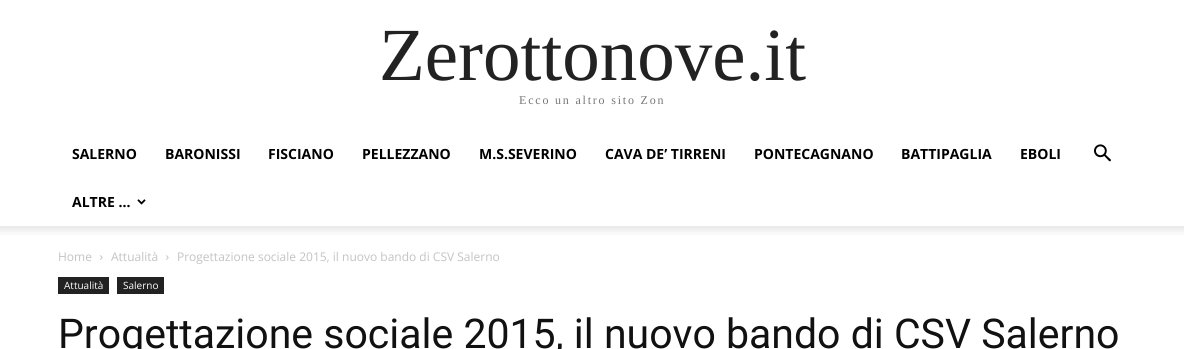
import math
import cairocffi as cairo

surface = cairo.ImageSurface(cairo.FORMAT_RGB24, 1184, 349)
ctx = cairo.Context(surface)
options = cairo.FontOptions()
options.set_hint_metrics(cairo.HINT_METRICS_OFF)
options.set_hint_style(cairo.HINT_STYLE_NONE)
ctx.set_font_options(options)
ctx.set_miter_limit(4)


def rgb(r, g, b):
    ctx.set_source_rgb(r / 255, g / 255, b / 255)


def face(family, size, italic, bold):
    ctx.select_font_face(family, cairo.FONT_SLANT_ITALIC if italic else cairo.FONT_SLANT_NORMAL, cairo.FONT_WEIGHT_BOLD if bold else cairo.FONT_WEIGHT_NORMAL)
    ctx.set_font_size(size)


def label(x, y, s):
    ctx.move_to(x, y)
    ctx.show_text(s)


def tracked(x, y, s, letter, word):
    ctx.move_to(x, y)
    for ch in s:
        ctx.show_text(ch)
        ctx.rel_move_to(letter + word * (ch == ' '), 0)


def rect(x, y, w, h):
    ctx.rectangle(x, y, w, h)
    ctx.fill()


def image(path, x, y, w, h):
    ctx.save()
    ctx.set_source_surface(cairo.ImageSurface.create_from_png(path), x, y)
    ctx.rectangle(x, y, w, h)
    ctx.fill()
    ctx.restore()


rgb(255, 255, 255)
ctx.paint()
face('Liberation Serif', 75, 0, 0)
rgb(34, 34, 34)
label(379, 80, 'Zerottonove.it')
face('Liberation Serif', 12, 0, 0)
rgb(119, 119, 119)
tracked(519, 104, 'Ecco un altro sito Zon', 1.8, 0)
face('Open Sans', 14, 0, 1)
rgb(0, 0, 0)
label(72, 159, 'SALERNO')
label(165, 159, 'BARONISSI')
label(268, 159, 'FISCIANO')
label(362, 159, 'PELLEZZANO')
label(479, 159, 'M.S.SEVERINO')
label(605, 159, 'CAVA DE’ TIRRENI')
label(754, 159, 'PONTECAGNANO')
label(901, 159, 'BATTIPAGLIA')
label(1020, 159, 'EBOLI')
label(72, 207, 'ALTRE …')
image('image0.png', 137, 199, 9, 6)
image('image1.png', 1094, 144, 17, 18)
image('image2.png', 0, 226, 1184, 9)
face('Open Sans', 12, 0, 0)
rgb(195, 195, 195)
label(58, 261, 'Home')
image('image3.png', 100, 255, 3, 5)
label(111, 261, 'Attualità')
image('image3.png', 166, 255, 3, 5)
label(177, 261, 'Progettazione sociale 2015, il nuovo bando di CSV Salerno')
rgb(34, 34, 34)
rect(58, 277, 51, 17)
face('Open Sans', 10, 0, 0)
rgb(255, 255, 255)
label(64, 289, 'Attualità')
rgb(34, 34, 34)
rect(117, 277, 47, 17)
rgb(255, 255, 255)
label(123, 289, 'Salerno')
face('Roboto', 41, 0, 0)
rgb(17, 17, 17)
label(58, 348, 'Progettazione sociale 2015, il nuovo bando di CSV Salerno')
surface.write_to_png('render.png')
